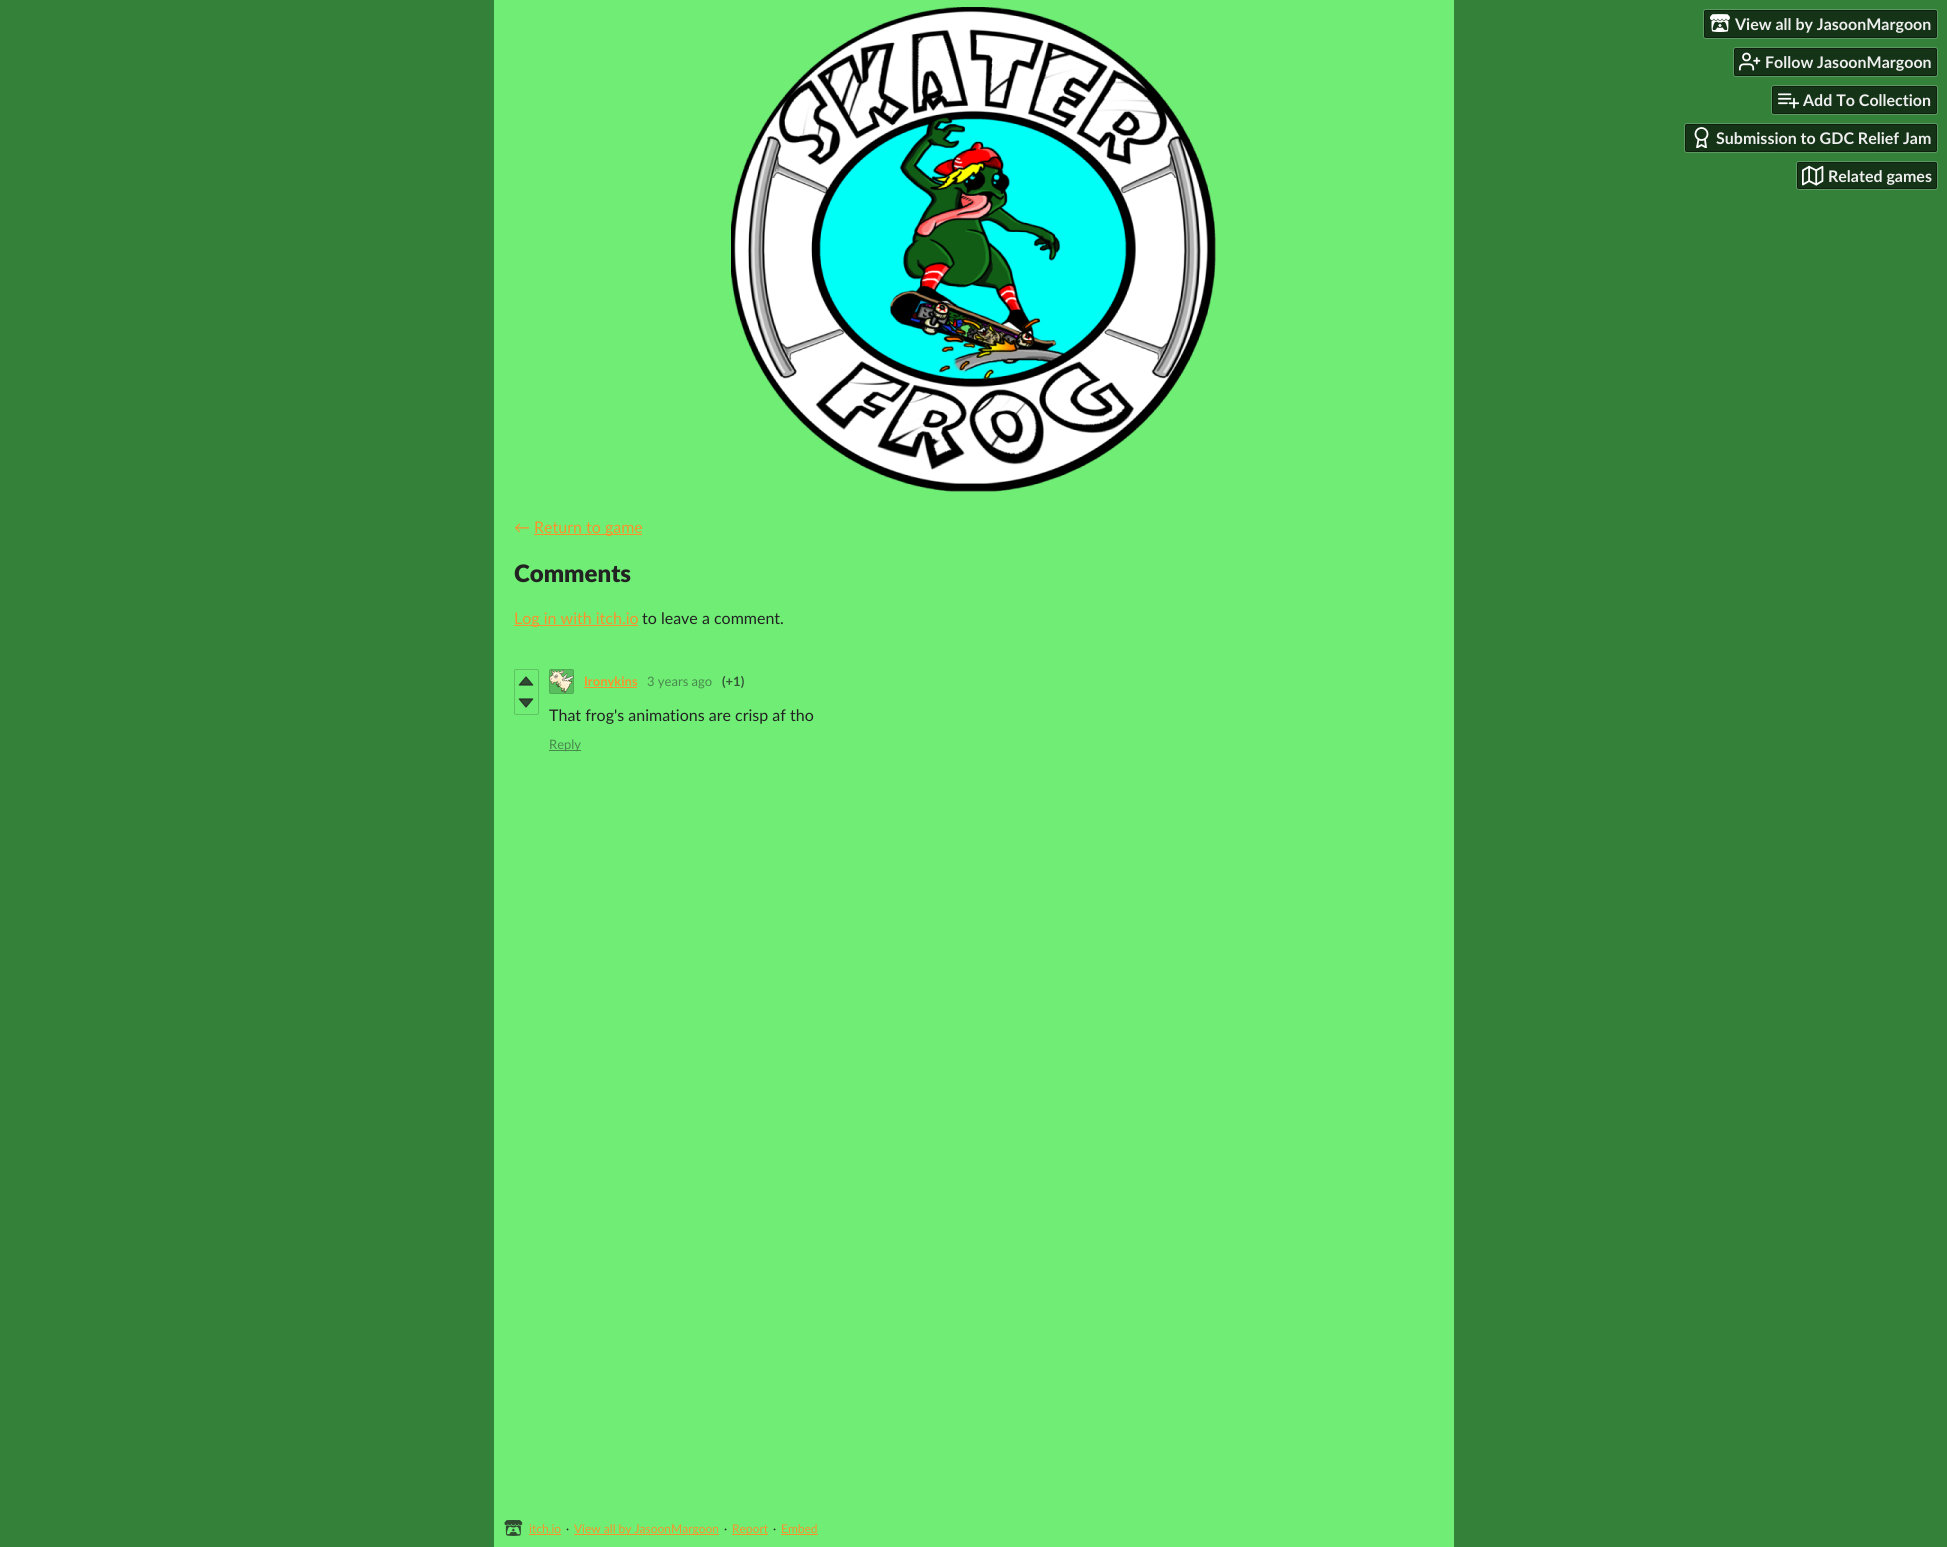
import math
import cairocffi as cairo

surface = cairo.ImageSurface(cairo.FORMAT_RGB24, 1947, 1547)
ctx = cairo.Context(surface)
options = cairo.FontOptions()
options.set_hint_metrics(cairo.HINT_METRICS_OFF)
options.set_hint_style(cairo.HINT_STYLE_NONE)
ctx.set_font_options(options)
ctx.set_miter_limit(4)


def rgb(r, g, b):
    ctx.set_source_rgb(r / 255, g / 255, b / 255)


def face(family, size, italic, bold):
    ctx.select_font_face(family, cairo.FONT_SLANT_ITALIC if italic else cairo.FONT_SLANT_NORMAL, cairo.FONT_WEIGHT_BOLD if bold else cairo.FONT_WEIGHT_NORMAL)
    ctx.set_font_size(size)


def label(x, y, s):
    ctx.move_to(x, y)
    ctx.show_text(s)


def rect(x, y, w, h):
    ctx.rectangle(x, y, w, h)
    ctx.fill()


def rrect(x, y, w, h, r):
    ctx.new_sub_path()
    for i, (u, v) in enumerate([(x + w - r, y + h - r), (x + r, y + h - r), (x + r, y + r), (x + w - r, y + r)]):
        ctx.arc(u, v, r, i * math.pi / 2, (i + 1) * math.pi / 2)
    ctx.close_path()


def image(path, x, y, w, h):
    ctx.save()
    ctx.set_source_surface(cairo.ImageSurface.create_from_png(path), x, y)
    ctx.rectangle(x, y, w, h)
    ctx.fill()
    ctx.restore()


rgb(52, 129, 57)
ctx.paint()
rrect(1703.5, 9.5, 234, 29, 2.5)
rgb(93, 154, 97)
ctx.set_line_width(1)
ctx.stroke()
ctx.set_source_rgba(0, 0, 0, 0.6)
rrect(1704, 10, 233, 28, 2)
ctx.fill()
rrect(1704.5, 10.5, 232, 27, 1.5)
ctx.set_source_rgba(0.039, 0.039, 0.039, 0.5)
ctx.stroke()
image('image0.png', 1710, 14, 20, 18)
face('Lato', 16, 0, 1)
rgb(238, 238, 238)
label(1735, 30, 'View all by JasoonMargoon')
rrect(1733.5, 47.5, 204, 29, 2.5)
rgb(93, 154, 97)
ctx.stroke()
ctx.set_source_rgba(0, 0, 0, 0.6)
rrect(1734, 48, 203, 28, 2)
ctx.fill()
rrect(1734.5, 48.5, 202, 27, 1.5)
ctx.set_source_rgba(0.039, 0.039, 0.039, 0.5)
ctx.stroke()
image('image1.png', 1739, 52, 22, 19)
rgb(238, 238, 238)
label(1765, 68, 'Follow JasoonMargoon')
rrect(1771.5, 85.5, 166, 29, 2.5)
rgb(93, 154, 97)
ctx.stroke()
ctx.set_source_rgba(0, 0, 0, 0.6)
rrect(1772, 86, 165, 28, 2)
ctx.fill()
rrect(1772.5, 86.5, 164, 27, 1.5)
ctx.set_source_rgba(0.039, 0.039, 0.039, 0.5)
ctx.stroke()
image('image2.png', 1778, 93, 21, 16)
rgb(238, 238, 238)
label(1803, 106, 'Add To Collection')
rrect(1684.5, 123.5, 253, 29, 2.5)
rgb(93, 154, 97)
ctx.stroke()
ctx.set_source_rgba(0, 0, 0, 0.6)
rrect(1685, 124, 252, 28, 2)
ctx.fill()
rrect(1685.5, 124.5, 251, 27, 1.5)
ctx.set_source_rgba(0.039, 0.039, 0.039, 0.5)
ctx.stroke()
ctx.arc(1701.5, 134, 6, 0, 2 * math.pi)
rgb(255, 255, 255)
ctx.set_line_width(1.8)
ctx.stroke()
ctx.save()
ctx.rectangle(1691, 127, 21, 21)
ctx.clip()
ctx.new_path()
ctx.move_to(1698.5, 139.5)
ctx.line_to(1697, 147.5)
ctx.line_to(1701.5, 145)
ctx.line_to(1706, 147.5)
ctx.line_to(1705, 139.5)
ctx.set_line_cap(cairo.LINE_CAP_ROUND)
ctx.set_line_join(cairo.LINE_JOIN_ROUND)
ctx.stroke()
ctx.restore()
rgb(238, 238, 238)
label(1716, 144, 'Submission to GDC Relief Jam')
rrect(1796.5, 161.5, 141, 28, 2.5)
rgb(93, 154, 97)
ctx.set_line_width(1)
ctx.stroke()
ctx.set_source_rgba(0, 0, 0, 0.6)
rrect(1797, 162, 140, 27, 2)
ctx.fill()
rrect(1797.5, 162.5, 139, 26, 1.5)
ctx.set_source_rgba(0.039, 0.039, 0.039, 0.5)
ctx.stroke()
image('image3.png', 1802, 165, 22, 21)
rgb(238, 238, 238)
label(1828, 182, 'Related games')
rgb(111, 237, 117)
rect(494, 0, 960, 1547)
image('image4.png', 731, 7, 485, 485)
face('Lato', 16, 0, 0)
rgb(251, 146, 43)
label(514, 533, '←')
rect(534, 534, 108, 1)
label(534, 533, 'Return to game')
face('Lato Black', 24, 0, 0)
rgb(34, 34, 34)
label(514, 582, 'Comments')
rgb(251, 146, 43)
rect(514, 625, 124, 1)
face('Lato', 16, 0, 0)
label(514, 624, 'Log in with itch.io')
rgb(34, 34, 34)
label(642, 624, 'to leave a comment.')
rrect(514.5, 669.5, 24, 45, 1.5)
rgb(96, 196, 100)
ctx.stroke()
image('image5.png', 518, 676, 16, 10)
image('image6.png', 518, 698, 16, 10)
rgb(89, 190, 94)
rrect(549, 669, 25, 25, 2)
ctx.fill()
image('image7.png', 549, 669, 25, 24)
rrect(549.5, 669.5, 24, 24, 1.5)
ctx.set_source_rgba(0, 0, 0, 0.1)
ctx.stroke()
rgb(251, 146, 43)
rect(584, 687, 53, 1)
face('Lato', 13, 0, 1)
label(584, 686, 'Ironykins')
face('Lato', 13, 0, 0)
rgb(73, 136, 76)
label(647, 686, '3 years ago')
face('Lato', 13, 0, 1)
rgb(53, 85, 55)
label(722, 686, '(+1)')
face('Lato', 16, 0, 0)
rgb(34, 34, 34)
label(549, 721, 'That frog\'s animations are crisp af tho')
rgb(73, 136, 76)
rect(549, 750, 32, 1)
face('Lato', 13, 0, 0)
label(549, 749, 'Reply')
image('image8.png', 504, 1520, 19, 16)
face('Lato', 12, 0, 0)
rgb(251, 146, 43)
label(529, 1533, 'itch.io')
rect(529, 1534, 32, 1)
rgb(34, 34, 34)
label(566, 1533, '·')
rgb(251, 146, 43)
rect(574, 1534, 145, 1)
label(574, 1533, 'View all by JasoonMargoon')
rgb(34, 34, 34)
label(724, 1533, '·')
rgb(251, 146, 43)
rect(732, 1534, 36, 1)
label(732, 1533, 'Report')
rgb(34, 34, 34)
label(773, 1533, '·')
rgb(251, 146, 43)
label(781, 1533, 'Embed')
rect(781, 1534, 37, 1)
surface.write_to_png('render.png')
